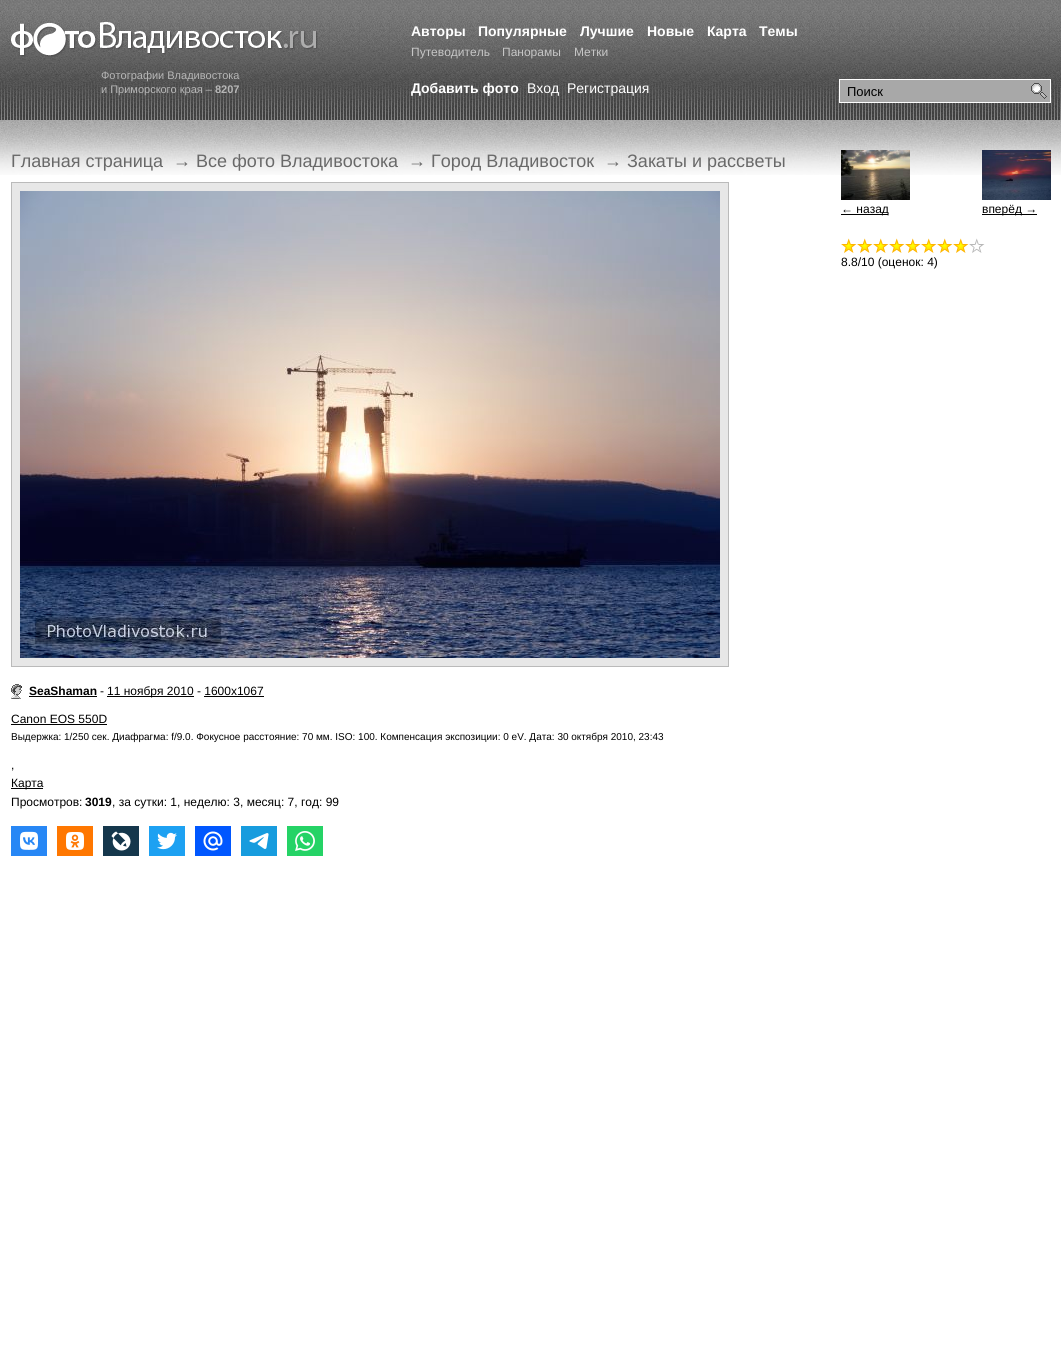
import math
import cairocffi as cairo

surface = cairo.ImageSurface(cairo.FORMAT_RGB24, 1061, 1371)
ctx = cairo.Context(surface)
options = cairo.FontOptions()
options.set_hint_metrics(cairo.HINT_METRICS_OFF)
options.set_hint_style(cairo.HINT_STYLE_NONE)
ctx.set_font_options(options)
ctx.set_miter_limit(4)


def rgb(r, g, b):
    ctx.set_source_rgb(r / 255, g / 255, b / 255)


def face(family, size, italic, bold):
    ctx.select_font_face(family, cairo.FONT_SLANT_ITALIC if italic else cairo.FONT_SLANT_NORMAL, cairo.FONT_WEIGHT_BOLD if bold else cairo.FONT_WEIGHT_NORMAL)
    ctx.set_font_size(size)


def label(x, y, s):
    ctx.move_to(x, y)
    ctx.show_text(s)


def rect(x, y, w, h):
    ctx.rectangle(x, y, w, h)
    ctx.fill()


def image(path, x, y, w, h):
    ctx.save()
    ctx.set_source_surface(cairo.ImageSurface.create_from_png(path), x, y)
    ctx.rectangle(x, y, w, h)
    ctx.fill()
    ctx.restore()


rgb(255, 255, 255)
ctx.paint()
image('image0.png', 0, 0, 1061, 120)
image('image1.png', 11, 22, 307, 35)
face('Liberation Sans', 11, 0, 0)
rgb(183, 183, 183)
label(101, 79, 'Фотографии Владивостока')
label(101, 93, 'и Приморского края –')
face('Liberation Sans', 11, 0, 1)
label(215, 93, '8207')
face('Liberation Sans', 14, 0, 1)
rgb(255, 255, 255)
label(411, 36, 'Авторы')
label(478, 36, 'Популярные')
label(580, 36, 'Лучшие')
label(647, 36, 'Новые')
label(707, 36, 'Карта')
label(759, 36, 'Темы')
face('Liberation Sans', 12, 0, 0)
rgb(198, 198, 198)
label(411, 56, 'Путеводитель')
label(502, 56, 'Панорамы')
label(574, 56, 'Метки')
face('Liberation Sans', 14, 0, 1)
rgb(255, 255, 255)
label(411, 93, 'Добавить фото')
face('Liberation Sans', 14, 0, 0)
label(527, 93, 'Вход')
label(567, 93, 'Регистрация')
ctx.rectangle(839.5, 79.5, 211, 23)
ctx.set_line_width(1)
ctx.stroke()
rgb(168, 168, 168)
rect(840, 80, 210, 22)
face('Liberation Sans', 13, 0, 0)
rgb(0, 0, 0)
label(847, 96, 'Поиск')
image('image2.png', 1031, 83, 16, 16)
image('image3.png', 0, 120, 1061, 55)
face('Liberation Sans', 18, 0, 0)
rgb(105, 105, 105)
label(11, 167, 'Главная страница')
label(173, 167, '→ Все фото Владивостока')
label(408, 167, '→ Город Владивосток')
label(604, 167, '→ Закаты и рассветы')
rgb(231, 231, 231)
ctx.rectangle(11.5, 182.5, 717, 484)
ctx.fill_preserve()
rgb(186, 186, 186)
ctx.stroke()
image('image4.png', 20, 191, 700, 467)
image('image5.png', 11, 684, 11, 15)
face('Liberation Sans', 12, 0, 1)
rgb(0, 0, 0)
label(29, 695, 'SeaShaman')
rect(29, 696, 68, 1)
face('Liberation Sans', 12, 0, 0)
label(100, 695, '-')
rect(107, 696, 87, 1)
label(107, 695, '11 ноября 2010 - 1600x1067')
rect(204, 696, 60, 1)
label(11, 723, 'Canon EOS 550D')
rect(11, 724, 96, 1)
face('Liberation Sans', 10, 0, 0)
label(11, 740, 'Выдержка: 1/250 сек. Диафрагма: f/9.0. Фокусное расстояние: 70 мм. ISO: 100. Компенсация экспозиции: 0 eV. Дата: 30 октября 2010, 23:43')
face('Liberation Sans', 12, 0, 0)
label(11, 769, ',')
rect(11, 788, 32, 1)
label(11, 787, 'Карта')
label(11, 806, 'Просмотров:')
face('Liberation Sans', 12, 0, 1)
label(85, 806, '3019')
face('Liberation Sans', 12, 0, 0)
label(112, 806, ', за сутки: 1, неделю: 3, месяц: 7, год: 99')
rgb(39, 135, 245)
rect(11, 826, 36, 30)
image('image6.png', 20, 831, 18, 19)
rgb(255, 119, 0)
rect(57, 826, 36, 30)
image('image7.png', 66, 832, 18, 18)
rgb(21, 55, 76)
rect(103, 826, 36, 30)
image('image8.png', 111, 831, 20, 20)
rgb(29, 161, 242)
rect(149, 826, 36, 30)
image('image9.png', 157, 832, 20, 18)
rgb(0, 87, 255)
rect(195, 826, 36, 30)
image('image10.png', 203, 831, 20, 20)
rgb(23, 156, 222)
rect(241, 826, 36, 30)
image('image11.png', 249, 833, 20, 16)
rgb(37, 211, 102)
rect(287, 826, 36, 30)
image('image12.png', 295, 831, 20, 20)
image('image13.png', 841, 150, 69, 50)
rgb(0, 0, 0)
rect(841, 214, 47, 1)
label(841, 213, '← назад')
image('image14.png', 982, 150, 69, 50)
rect(982, 214, 55, 1)
label(982, 213, 'вперёд →')
image('image15.png', 841, 238, 16, 15)
image('image15.png', 857, 238, 16, 15)
image('image15.png', 873, 238, 16, 15)
image('image15.png', 889, 238, 16, 15)
image('image15.png', 905, 238, 16, 15)
image('image15.png', 921, 238, 16, 15)
image('image15.png', 937, 238, 16, 15)
image('image15.png', 953, 238, 16, 15)
image('image16.png', 969, 238, 16, 15)
label(841, 266, '8.8/10 (оценок: 4)')
surface.write_to_png('render.png')
